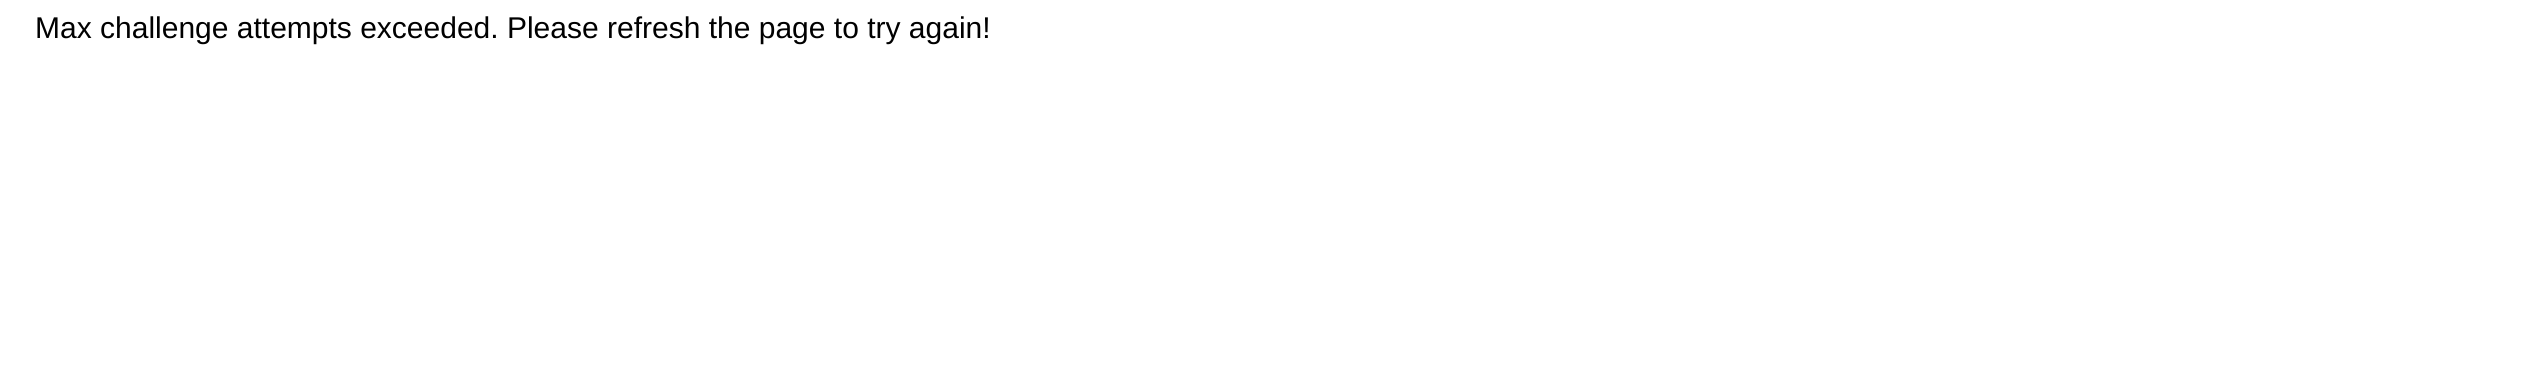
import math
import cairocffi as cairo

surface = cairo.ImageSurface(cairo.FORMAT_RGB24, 2543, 391)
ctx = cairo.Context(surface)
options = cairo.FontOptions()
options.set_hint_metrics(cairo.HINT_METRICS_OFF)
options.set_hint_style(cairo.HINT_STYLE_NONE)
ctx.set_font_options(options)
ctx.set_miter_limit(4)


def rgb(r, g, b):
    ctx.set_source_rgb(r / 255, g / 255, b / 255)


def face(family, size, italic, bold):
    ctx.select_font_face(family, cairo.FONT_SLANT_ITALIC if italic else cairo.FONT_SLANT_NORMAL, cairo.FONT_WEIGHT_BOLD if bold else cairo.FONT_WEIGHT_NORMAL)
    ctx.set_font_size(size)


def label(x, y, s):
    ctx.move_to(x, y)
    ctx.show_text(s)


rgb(255, 255, 255)
ctx.paint()
face('Liberation Sans', 30, 0, 0)
rgb(0, 0, 0)
label(35, 38, 'Max challenge attempts exceeded. Please refresh the page to try again!')
surface.write_to_png('render.png')
